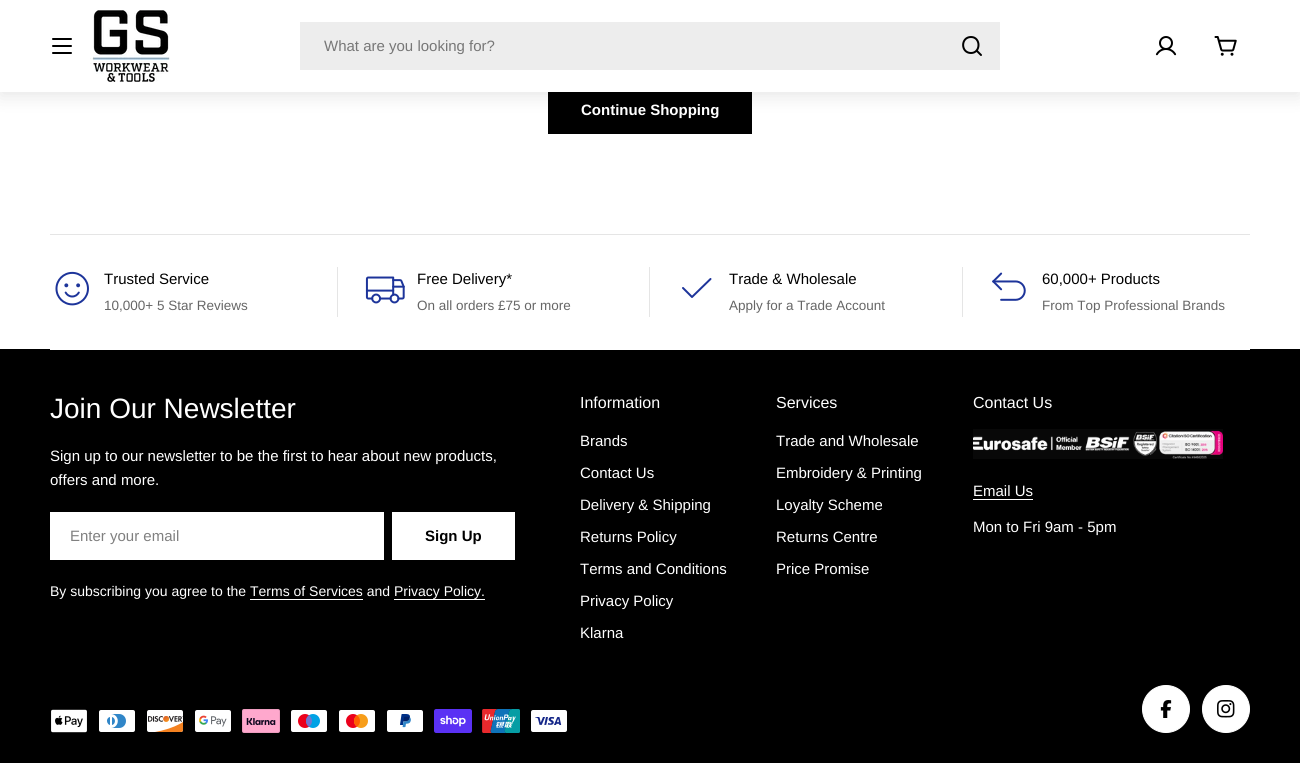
import math
import cairocffi as cairo

surface = cairo.ImageSurface(cairo.FORMAT_RGB24, 1300, 763)
ctx = cairo.Context(surface)
options = cairo.FontOptions()
options.set_hint_metrics(cairo.HINT_METRICS_OFF)
options.set_hint_style(cairo.HINT_STYLE_NONE)
ctx.set_font_options(options)
ctx.set_miter_limit(4)


def rgb(r, g, b):
    ctx.set_source_rgb(r / 255, g / 255, b / 255)


def face(family, size, italic, bold):
    ctx.select_font_face(family, cairo.FONT_SLANT_ITALIC if italic else cairo.FONT_SLANT_NORMAL, cairo.FONT_WEIGHT_BOLD if bold else cairo.FONT_WEIGHT_NORMAL)
    ctx.set_font_size(size)


def label(x, y, s):
    ctx.move_to(x, y)
    ctx.show_text(s)


def rect(x, y, w, h):
    ctx.rectangle(x, y, w, h)
    ctx.fill()


def rrect(x, y, w, h, r):
    ctx.new_sub_path()
    for i, (u, v) in enumerate([(x + w - r, y + h - r), (x + r, y + h - r), (x + r, y + r), (x + w - r, y + r)]):
        ctx.arc(u, v, r, i * math.pi / 2, (i + 1) * math.pi / 2)
    ctx.close_path()


def soft_shadow(x, y, w, h, r, blur, alpha):
    ctx.push_group_with_content(cairo.CONTENT_ALPHA)
    ctx.set_operator(cairo.OPERATOR_SOURCE)
    for i in range(15, -16, -2):
        e = blur * i / 6
        if min(w, h) + 2 * e > 0:
            ctx.set_source_rgba(0, 0, 0, alpha * math.erfc((i - 1) / 8.5) / 2)
            rrect(x - e, y - e, w + 2 * e, h + 2 * e, max(0, min(r + e + blur * .6, min(w, h) / 2 + e)))
            ctx.fill()
    ctx.mask(ctx.pop_group())


def image(path, x, y, w, h):
    ctx.save()
    ctx.set_source_surface(cairo.ImageSurface.create_from_png(path), x, y)
    ctx.rectangle(x, y, w, h)
    ctx.fill()
    ctx.restore()


rgb(255, 255, 255)
ctx.paint()
rgb(0, 0, 0)
rect(548, 92, 204, 42)
rgb(0, 0, 0)
soft_shadow(0, 4, 1300, 92, 0, 9, 0.1)
rgb(255, 255, 255)
rect(0, 0, 1300, 92)
rgb(0, 0, 0)
rrect(52, 45, 20, 2, 1)
ctx.fill()
rrect(52, 38, 20, 2, 1)
ctx.fill()
rrect(52, 52, 20, 2, 1)
ctx.fill()
image('image0.png', 90, 10, 80, 72)
rgb(237, 237, 237)
rect(300, 22, 700, 48)
face('Liberation Sans', 15, 0, 0)
rgb(119, 119, 119)
label(324, 51, 'What are you looking for?')
ctx.new_path()
ctx.move_to(971, 53)
ctx.curve_to(981, 53, 981, 37, 971, 37)
ctx.curve_to(960.5, 37, 960.5, 53, 971, 53)
ctx.close_path()
ctx.move_to(976.5, 50.5)
ctx.line_to(981, 55)
rgb(0, 0, 0)
ctx.set_line_cap(cairo.LINE_CAP_ROUND)
ctx.set_line_join(cairo.LINE_JOIN_ROUND)
ctx.stroke()
image('image1.png', 1155, 36, 22, 20)
image('image2.png', 1214, 36, 23, 20)
face('Liberation Sans', 15, 0, 1)
rgb(255, 255, 255)
label(581, 115, 'Continue Shopping')
rgb(229, 229, 229)
rect(50, 234, 1200, 1)
image('image3.png', 55, 271, 34, 35)
face('Liberation Sans', 15, 0, 0)
rgb(0, 0, 0)
label(104, 284, 'Trusted Service')
face('Liberation Sans', 13.5, 0, 0)
rgb(102, 102, 102)
label(104, 310, '10,000+ 5 Star Reviews')
rgb(229, 229, 229)
rect(337, 267, 1, 50)
image('image4.png', 365, 276, 40, 28)
face('Liberation Sans', 15, 0, 0)
rgb(0, 0, 0)
label(417, 284, 'Free Delivery*')
face('Liberation Sans', 13.5, 0, 0)
rgb(102, 102, 102)
label(417, 310, 'On all orders £75 or more')
rgb(229, 229, 229)
rect(649, 267, 1, 50)
ctx.new_path()
ctx.move_to(710.5, 279)
ctx.line_to(692, 297)
ctx.line_to(683, 288)
rgb(29, 52, 154)
ctx.stroke()
face('Liberation Sans', 15, 0, 0)
rgb(0, 0, 0)
label(729, 284, 'Trade & Wholesale')
face('Liberation Sans', 13.5, 0, 0)
rgb(102, 102, 102)
label(729, 310, 'Apply for a Trade Account')
rgb(229, 229, 229)
rect(962, 267, 1, 50)
image('image5.png', 992, 272, 34, 29)
face('Liberation Sans', 15, 0, 0)
rgb(0, 0, 0)
label(1042, 284, '60,000+ Products')
face('Liberation Sans', 13.5, 0, 0)
rgb(102, 102, 102)
label(1042, 310, 'From Top Professional Brands')
rgb(0, 0, 0)
rect(0, 349, 1300, 414)
rgb(255, 255, 255)
rect(50, 349, 1200, 1)
face('Liberation Sans', 28, 0, 0)
label(50, 418, 'Join Our Newsletter')
face('Liberation Sans', 15, 0, 0)
label(50, 461, 'Sign up to our newsletter to be the first to hear about new products,')
label(50, 485, 'offers and more.')
rect(50, 512, 334, 48)
rgb(128, 128, 128)
label(70, 541, 'Enter your email')
rgb(255, 255, 255)
rect(392, 512, 123, 48)
face('Liberation Sans', 15, 0, 1)
rgb(0, 0, 0)
label(425, 541, 'Sign Up')
face('Liberation Sans', 14, 0, 0)
rgb(255, 255, 255)
label(50, 596, 'By subscribing you agree to the Terms of Services and Privacy Policy.')
rect(250, 599, 113, 1)
rect(394, 599, 91, 1)
face('Liberation Sans', 16, 0, 0)
label(580, 408, 'Information')
face('Liberation Sans', 15, 0, 0)
label(580, 446, 'Brands')
label(580, 478, 'Contact Us')
label(580, 510, 'Delivery & Shipping')
label(580, 542, 'Returns Policy')
label(580, 574, 'Terms and Conditions')
label(580, 606, 'Privacy Policy')
label(580, 638, 'Klarna')
face('Liberation Sans', 16, 0, 0)
label(776, 408, 'Services')
face('Liberation Sans', 15, 0, 0)
label(776, 446, 'Trade and Wholesale')
label(776, 478, 'Embroidery & Printing')
label(776, 510, 'Loyalty Scheme')
label(776, 542, 'Returns Centre')
label(776, 574, 'Price Promise')
face('Liberation Sans', 16, 0, 0)
label(973, 408, 'Contact Us')
rgb(8, 8, 8)
rect(973, 429, 250, 30)
image('image6.png', 973, 430, 250, 29)
face('Liberation Sans', 15, 0, 0)
rgb(255, 255, 255)
label(973, 496, 'Email Us')
rect(973, 499, 60, 1)
label(973, 532, 'Mon to Fri 9am - 5pm')
image('image7.png', 51, 709, 36, 24)
image('image8.png', 99, 710, 36, 22)
image('image9.png', 147, 710, 37, 22)
image('image10.png', 195, 710, 36, 22)
image('image11.png', 242, 709, 38, 24)
image('image12.png', 291, 710, 36, 22)
image('image13.png', 339, 710, 36, 22)
image('image14.png', 387, 710, 36, 22)
image('image15.png', 434, 709, 38, 24)
image('image16.png', 482, 709, 38, 24)
image('image17.png', 531, 710, 36, 22)
ctx.arc(1166, 709, 23.5, 0, 2 * math.pi)
ctx.fill_preserve()
ctx.set_line_width(1)
ctx.set_line_cap(cairo.LINE_CAP_BUTT)
ctx.set_line_join(cairo.LINE_JOIN_MITER)
ctx.stroke()
image('image18.png', 1160, 700, 12, 18)
ctx.arc(1226, 709, 23.5, 0, 2 * math.pi)
ctx.fill_preserve()
ctx.stroke()
image('image19.png', 1217, 700, 18, 18)
surface.write_to_png('render.png')
